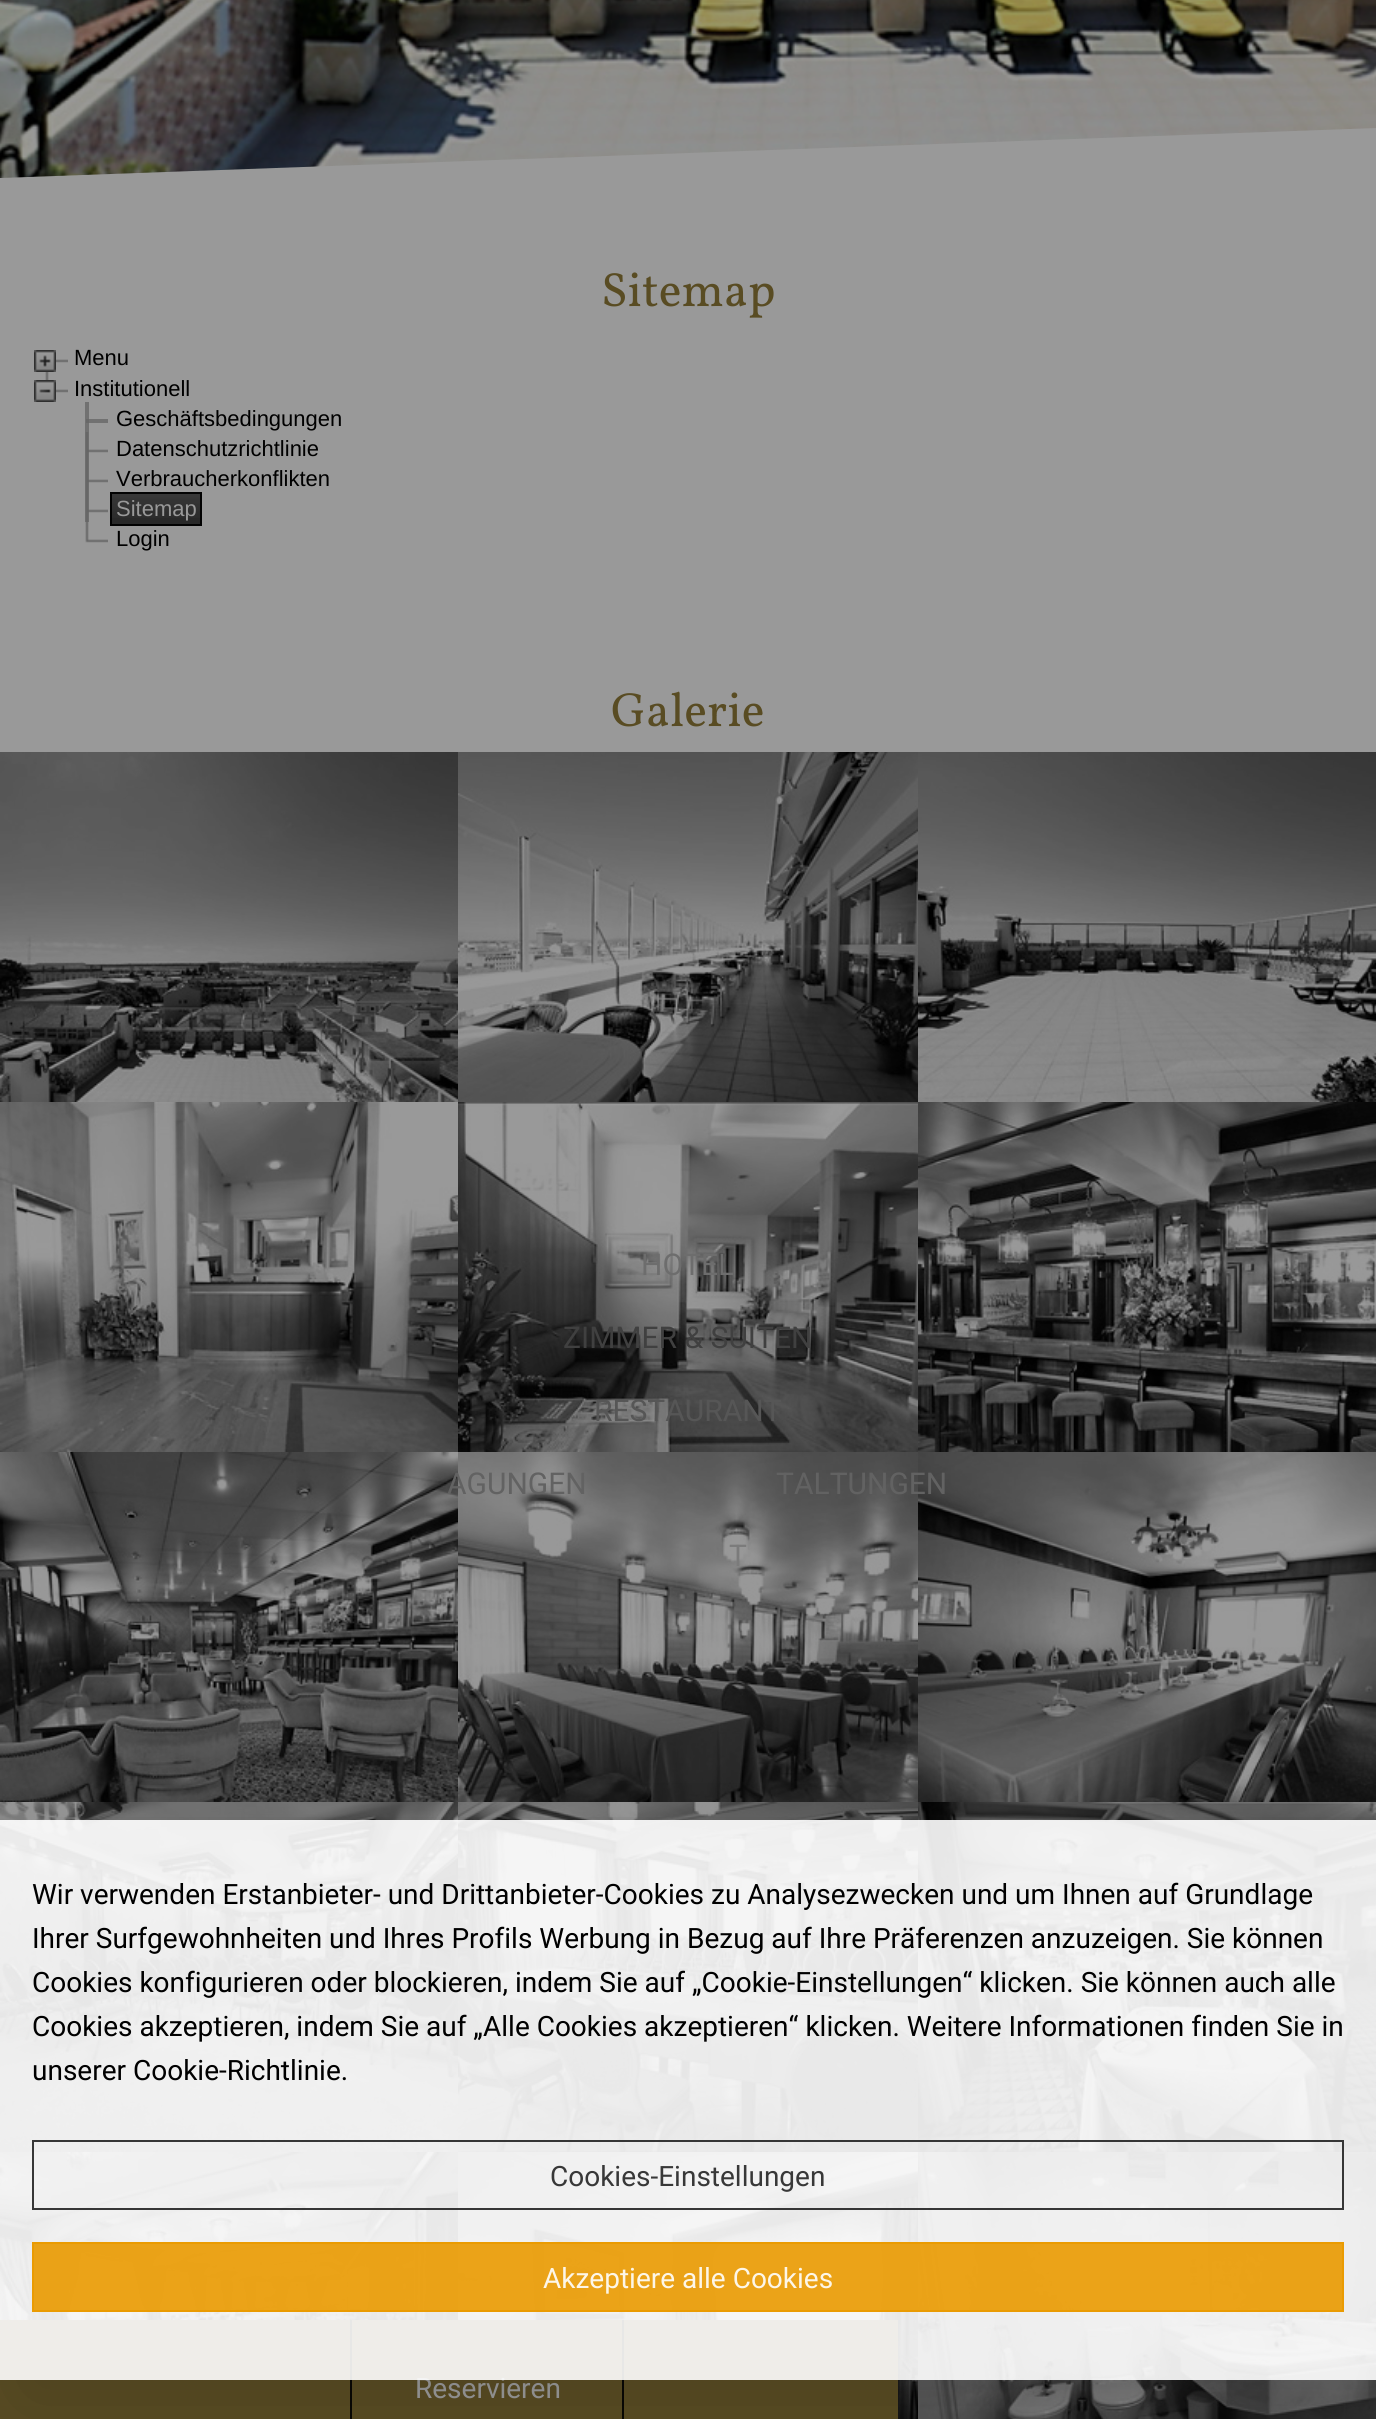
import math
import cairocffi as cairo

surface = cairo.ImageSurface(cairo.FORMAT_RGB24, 1376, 2419)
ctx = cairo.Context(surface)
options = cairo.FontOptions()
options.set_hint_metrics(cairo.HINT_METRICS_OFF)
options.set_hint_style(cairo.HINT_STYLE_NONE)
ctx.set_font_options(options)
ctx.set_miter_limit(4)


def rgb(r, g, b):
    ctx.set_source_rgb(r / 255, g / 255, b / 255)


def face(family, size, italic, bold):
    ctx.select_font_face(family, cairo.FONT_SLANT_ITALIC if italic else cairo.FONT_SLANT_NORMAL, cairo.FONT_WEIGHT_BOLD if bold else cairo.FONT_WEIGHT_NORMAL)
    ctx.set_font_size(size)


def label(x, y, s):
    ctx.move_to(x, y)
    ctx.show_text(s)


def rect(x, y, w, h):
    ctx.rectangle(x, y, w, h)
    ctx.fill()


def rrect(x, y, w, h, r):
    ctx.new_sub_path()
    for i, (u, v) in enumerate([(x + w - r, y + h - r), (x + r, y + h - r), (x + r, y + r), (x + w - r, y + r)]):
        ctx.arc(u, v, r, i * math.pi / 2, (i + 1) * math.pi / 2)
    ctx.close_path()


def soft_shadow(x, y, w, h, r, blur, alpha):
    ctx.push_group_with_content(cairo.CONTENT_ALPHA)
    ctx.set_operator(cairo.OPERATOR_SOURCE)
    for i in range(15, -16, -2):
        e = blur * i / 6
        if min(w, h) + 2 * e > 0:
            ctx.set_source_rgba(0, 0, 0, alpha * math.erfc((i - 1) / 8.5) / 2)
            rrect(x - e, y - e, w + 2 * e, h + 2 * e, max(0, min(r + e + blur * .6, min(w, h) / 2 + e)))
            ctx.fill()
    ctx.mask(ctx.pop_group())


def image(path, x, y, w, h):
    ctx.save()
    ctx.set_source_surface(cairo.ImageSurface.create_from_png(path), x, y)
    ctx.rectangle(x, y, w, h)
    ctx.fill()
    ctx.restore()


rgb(153, 153, 153)
ctx.paint()
rgb(113, 113, 113)
rect(86, 419, 22, 4)
image('image0.png', 0, 0, 1376, 178)
rgb(153, 153, 153)
ctx.new_path()
ctx.move_to(0, 178)
ctx.line_to(1376, 128)
ctx.line_to(1376, 178)
ctx.close_path()
ctx.fill()
face('Vollkorn', 48, 0, 0)
rgb(89, 76, 35)
label(601, 306, 'Sitemap')
image('image1.png', 56, 359, 12, 4)
image('image2.png', 34, 350, 22, 22)
face('Liberation Sans', 22, 0, 0)
rgb(0, 0, 0)
label(74, 365, 'Menu')
image('image3.png', 45, 372, 23, 21)
image('image4.png', 34, 380, 22, 22)
label(74, 396, 'Institutionell')
rgb(113, 113, 113)
rect(85, 402, 4, 120)
rgb(104, 104, 104)
rect(86, 419, 3, 4)
rgb(0, 0, 0)
label(116, 426, 'Geschäftsbedingungen')
image('image5.png', 85, 432, 23, 30)
label(116, 456, 'Datenschutzrichtlinie')
image('image5.png', 85, 462, 23, 30)
label(116, 486, 'Verbraucherkonflikten')
image('image5.png', 85, 492, 23, 30)
image('image6.png', 112, 494, 88, 24)
rgb(41, 41, 41)
rect(112, 518, 88, 6)
ctx.rectangle(111, 493, 90, 32)
rgb(2, 2, 2)
ctx.stroke()
rgb(153, 153, 153)
label(116, 516, 'Sitemap')
image('image3.png', 85, 522, 23, 21)
rgb(0, 0, 0)
label(116, 546, 'Login')
face('Vollkorn', 48, 0, 0)
rgb(89, 76, 35)
label(611, 726, 'Galerie')
image('image7.png', 0, 752, 458, 350)
image('image8.png', 458, 752, 460, 350)
image('image9.png', 918, 752, 458, 350)
image('image10.png', 0, 1102, 458, 350)
image('image11.png', 458, 1102, 460, 350)
image('image12.png', 918, 1102, 458, 350)
image('image13.png', 0, 1452, 458, 350)
image('image14.png', 458, 1452, 460, 350)
image('image15.png', 918, 1452, 458, 350)
image('image16.png', 0, 1802, 458, 350)
image('image17.png', 458, 1802, 460, 350)
image('image18.png', 918, 1802, 458, 350)
image('image19.png', 0, 2152, 458, 168)
image('image20.png', 458, 2152, 460, 267)
image('image21.png', 918, 2152, 458, 267)
face('Roboto', 30, 0, 0)
rgb(109, 109, 109)
label(641, 1275, 'HOTEL')
rgb(64, 64, 64)
label(563, 1348, 'ZIMMER & SUITEN')
rgb(86, 86, 86)
label(594, 1421, 'RESTAURANT')
rgb(98, 98, 98)
label(447, 1494, 'AGUNGEN')
label(776, 1494, 'TALTUNGEN')
rgb(123, 123, 123)
label(729, 1566, 'T')
rgb(89, 76, 35)
rect(0, 2320, 350, 99)
rgb(9, 8, 4)
rect(350, 2320, 2, 99)
rgb(89, 76, 35)
rect(352, 2320, 270, 99)
rgb(9, 8, 4)
rect(622, 2320, 2, 99)
face('Roboto', 28, 0, 0)
rgb(153, 153, 153)
label(415, 2398, 'Reservieren')
rgb(89, 76, 35)
rect(624, 2320, 274, 99)
ctx.save()
ctx.set_fill_rule(cairo.FILL_RULE_EVEN_ODD)
ctx.new_path()
ctx.move_to(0, 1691)
ctx.line_to(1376, 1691)
ctx.line_to(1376, 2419)
ctx.line_to(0, 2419)
ctx.close_path()
ctx.move_to(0, 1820)
ctx.line_to(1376, 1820)
ctx.line_to(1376, 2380)
ctx.line_to(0, 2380)
ctx.close_path()
ctx.clip()
rgb(0, 0, 0)
soft_shadow(22, 1842, 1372, 556, 0, 50, 0.15)
ctx.restore()
ctx.set_source_rgba(1, 1, 1, 0.9)
rect(0, 1820, 1376, 560)
rgb(0, 0, 0)
label(32, 1904, 'Wir verwenden Erstanbieter- und Drittanbieter-Cookies zu Analysezwecken und um Ihnen auf Grundlage')
label(32, 1948, 'Ihrer Surfgewohnheiten und Ihres Profils Werbung in Bezug auf Ihre Präferenzen anzuzeigen. Sie können')
label(32, 1992, 'Cookies konfigurieren oder blockieren, indem Sie auf „Cookie-Einstellungen“ klicken. Sie können auch alle')
label(32, 2036, 'Cookies akzeptieren, indem Sie auf „Alle Cookies akzeptieren“ klicken. Weitere Informationen finden Sie in')
label(32, 2080, 'unserer Cookie-Richtlinie.')
ctx.rectangle(33, 2141, 1310, 68)
ctx.set_source_rgba(0.137, 0.137, 0.137, 0.9)
ctx.stroke()
rgb(56, 56, 56)
label(550, 2186, 'Cookies-Einstellungen')
ctx.set_source_rgba(0.918, 0.604, 0, 0.9)
ctx.rectangle(33, 2243, 1310, 68)
ctx.fill_preserve()
rgb(234, 155, 2)
ctx.stroke()
rgb(253, 246, 232)
label(543, 2288, 'Akzeptiere alle Cookies')
surface.write_to_png('render.png')
